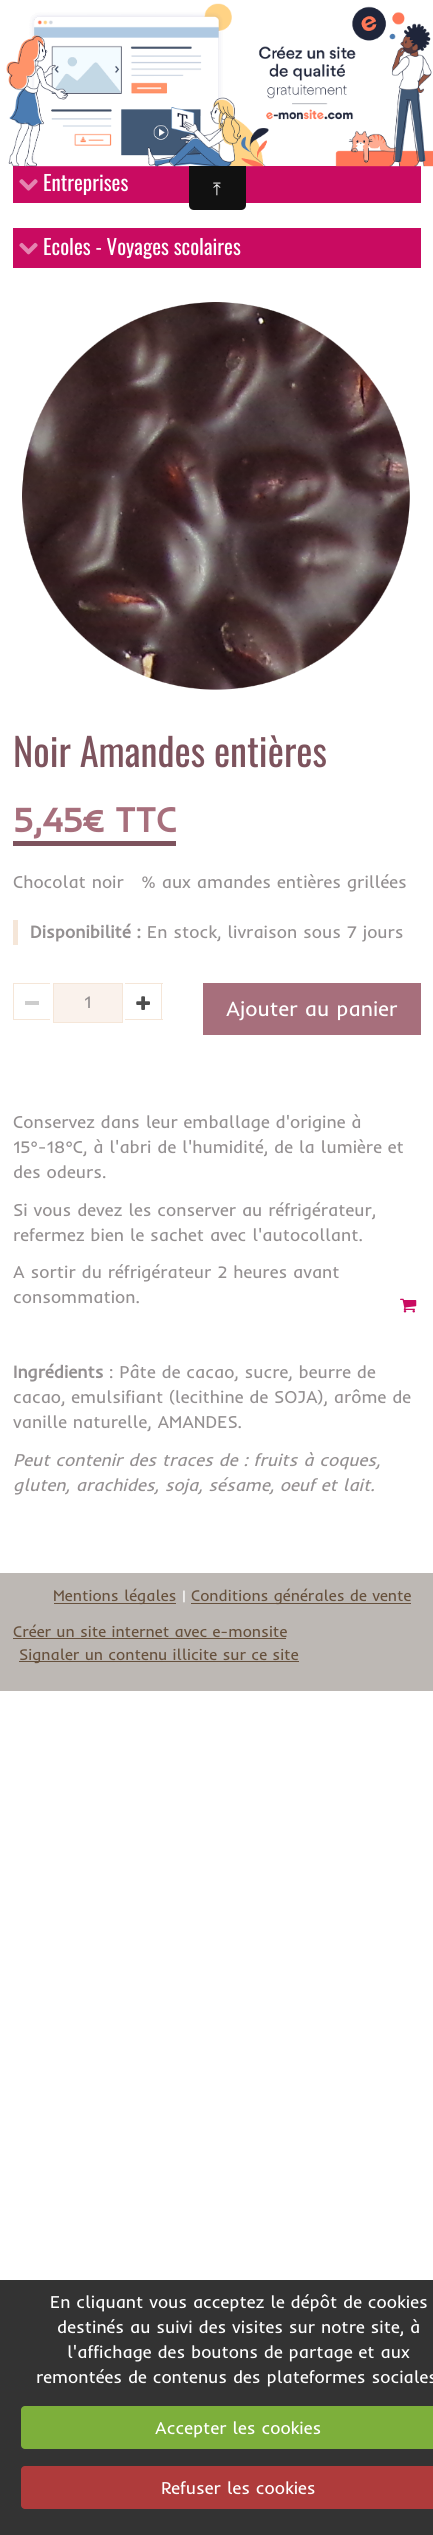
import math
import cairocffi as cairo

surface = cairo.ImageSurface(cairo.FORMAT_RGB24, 433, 2535)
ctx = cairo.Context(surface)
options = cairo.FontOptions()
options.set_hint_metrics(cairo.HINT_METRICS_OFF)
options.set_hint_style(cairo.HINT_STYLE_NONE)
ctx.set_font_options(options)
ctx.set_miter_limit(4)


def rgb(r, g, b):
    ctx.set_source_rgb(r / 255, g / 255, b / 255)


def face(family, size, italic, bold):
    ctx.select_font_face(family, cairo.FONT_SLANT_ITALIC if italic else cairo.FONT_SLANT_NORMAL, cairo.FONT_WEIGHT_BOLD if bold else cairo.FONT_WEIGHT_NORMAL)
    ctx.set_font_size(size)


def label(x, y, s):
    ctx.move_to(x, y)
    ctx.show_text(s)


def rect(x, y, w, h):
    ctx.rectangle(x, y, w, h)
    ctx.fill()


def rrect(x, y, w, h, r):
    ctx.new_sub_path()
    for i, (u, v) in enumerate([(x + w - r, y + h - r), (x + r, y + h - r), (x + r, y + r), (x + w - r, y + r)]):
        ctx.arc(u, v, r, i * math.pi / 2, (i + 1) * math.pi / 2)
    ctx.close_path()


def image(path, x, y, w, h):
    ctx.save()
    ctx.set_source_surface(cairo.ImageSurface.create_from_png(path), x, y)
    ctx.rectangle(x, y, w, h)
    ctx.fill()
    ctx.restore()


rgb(255, 255, 255)
ctx.paint()
rgb(201, 11, 97)
rect(13, 166, 408, 37)
image('image0.png', 19, 179, 19, 12)
face('Oswald', 21, 0, 0)
rgb(255, 255, 255)
label(43, 191, 'Entreprises')
rgb(201, 11, 97)
rect(13, 228, 408, 40)
image('image1.png', 19, 242, 19, 13)
rgb(255, 255, 255)
label(43, 255, 'Ecoles - Voyages scolaires')
image('image2.png', 22, 302, 388, 388)
face('Oswald', 38.5, 0, 0)
rgb(125, 83, 93)
label(13, 767, 'Noir Amandes entières')
face('Inder', 35, 0, 1)
rgb(167, 111, 124)
label(13, 832, '5,45€ TTC')
rgb(125, 83, 93)
rect(13, 841, 163, 5)
face('Inder', 17.5, 0, 0)
rgb(148, 144, 145)
label(13, 888, 'Chocolat noir   % aux amandes entières grillées')
rgb(245, 230, 216)
rect(13, 920, 5, 25)
face('Inder', 17.5, 0, 1)
rgb(148, 144, 145)
label(30, 938, 'Disponibilité :')
face('Inder', 17.5, 0, 0)
label(147, 938, 'En stock, livraison sous 7 jours')
rgb(245, 230, 216)
rect(13, 983, 37, 1)
rect(13, 1019, 37, 1)
rect(13, 983, 1, 37)
rgb(205, 205, 205)
rect(25, 1001, 14, 4)
rgb(250, 242, 236)
ctx.rectangle(53.5, 983.5, 69, 39)
ctx.fill_preserve()
rgb(245, 230, 216)
ctx.set_line_width(1)
ctx.stroke()
rgb(148, 144, 145)
label(84, 1008, '1')
rgb(245, 230, 216)
rect(125, 983, 38, 1)
rect(161, 983, 1, 37)
rect(125, 1019, 38, 1)
image('image3.png', 136, 996, 14, 14)
rgb(167, 111, 124)
rect(203, 983, 218, 52)
face('Inder', 21, 0, 0)
rgb(255, 255, 255)
label(226, 1016, 'Ajouter au panier')
face('Inder', 17.5, 0, 0)
rgb(148, 144, 145)
label(13, 1128, 'Conservez dans leur emballage d\'origine à')
label(13, 1153, '15°-18°C, à l\'abri de l\'humidité, de la lumière et')
label(13, 1178, 'des odeurs.')
label(13, 1216, 'Si vous devez les conserver au réfrigérateur,')
label(13, 1241, 'refermez bien le sachet avec l\'autocollant.')
label(13, 1278, 'A sortir du réfrigérateur 2 heures avant')
label(13, 1303, 'consommation.')
face('Inder', 17.5, 0, 1)
label(13, 1378, 'Ingrédients')
face('Inder', 17.5, 0, 0)
label(109, 1378, ': Pâte de cacao, sucre, beurre de')
label(13, 1403, 'cacao, emulsifiant (lecithine de SOJA), arôme de')
label(13, 1428, 'vanille naturelle, AMANDES.')
face('Inder', 17.5, 1, 0)
label(13, 1466, 'Peut contenir des traces de : fruits à coques,')
label(13, 1491, 'gluten, arachides, soja, sésame, oeuf et lait.')
image('image4.png', 6, 3, 427, 164)
rgb(17, 17, 17)
ctx.new_path()
ctx.move_to(189, 166)
ctx.line_to(246, 166)
ctx.line_to(246, 205)
ctx.curve_to(246, 208, 244, 210, 241, 210)
ctx.line_to(194, 210)
ctx.curve_to(191, 210, 189, 208, 189, 205)
ctx.close_path()
ctx.fill()
face('FreeSerif', 17.5, 0, 0)
rgb(255, 255, 255)
label(213, 195, '⤒')
image('image5.png', 400, 1298, 17, 15)
rgb(189, 184, 180)
rect(0, 1573, 433, 118)
rgb(103, 81, 61)
rect(54, 1603, 122, 1)
face('Inder', 15.75, 0, 0)
label(53, 1601, 'Mentions légales')
rgb(255, 255, 255)
label(182, 1601, '|')
rgb(103, 81, 61)
rect(191, 1603, 220, 1)
label(191, 1601, 'Conditions générales de vente')
label(13, 1637, 'Créer un site internet avec e-monsite')
rect(13, 1638, 273, 1)
rect(19, 1661, 280, 1)
label(19, 1660, 'Signaler un contenu illicite sur ce site')
rgb(51, 51, 51)
rect(0, 2280, 433, 255)
face('Inder', 17.5, 0, 0)
rgb(255, 255, 255)
label(50, 2308, 'En cliquant vous acceptez le dépôt de cookies')
label(57, 2333, 'destinés au suivi des visites sur notre site, à')
label(67, 2358, 'l\'affichage des boutons de partage et aux')
label(36, 2383, 'remontées de contenus des plateformes sociales')
rgb(125, 175, 59)
rrect(21, 2406, 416, 43, 4)
ctx.fill()
rgb(255, 255, 255)
label(155, 2434, 'Accepter les cookies')
rgb(175, 59, 59)
rrect(21, 2466, 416, 43, 4)
ctx.fill()
rgb(255, 255, 255)
label(161, 2494, 'Refuser les cookies')
surface.write_to_png('render.png')
